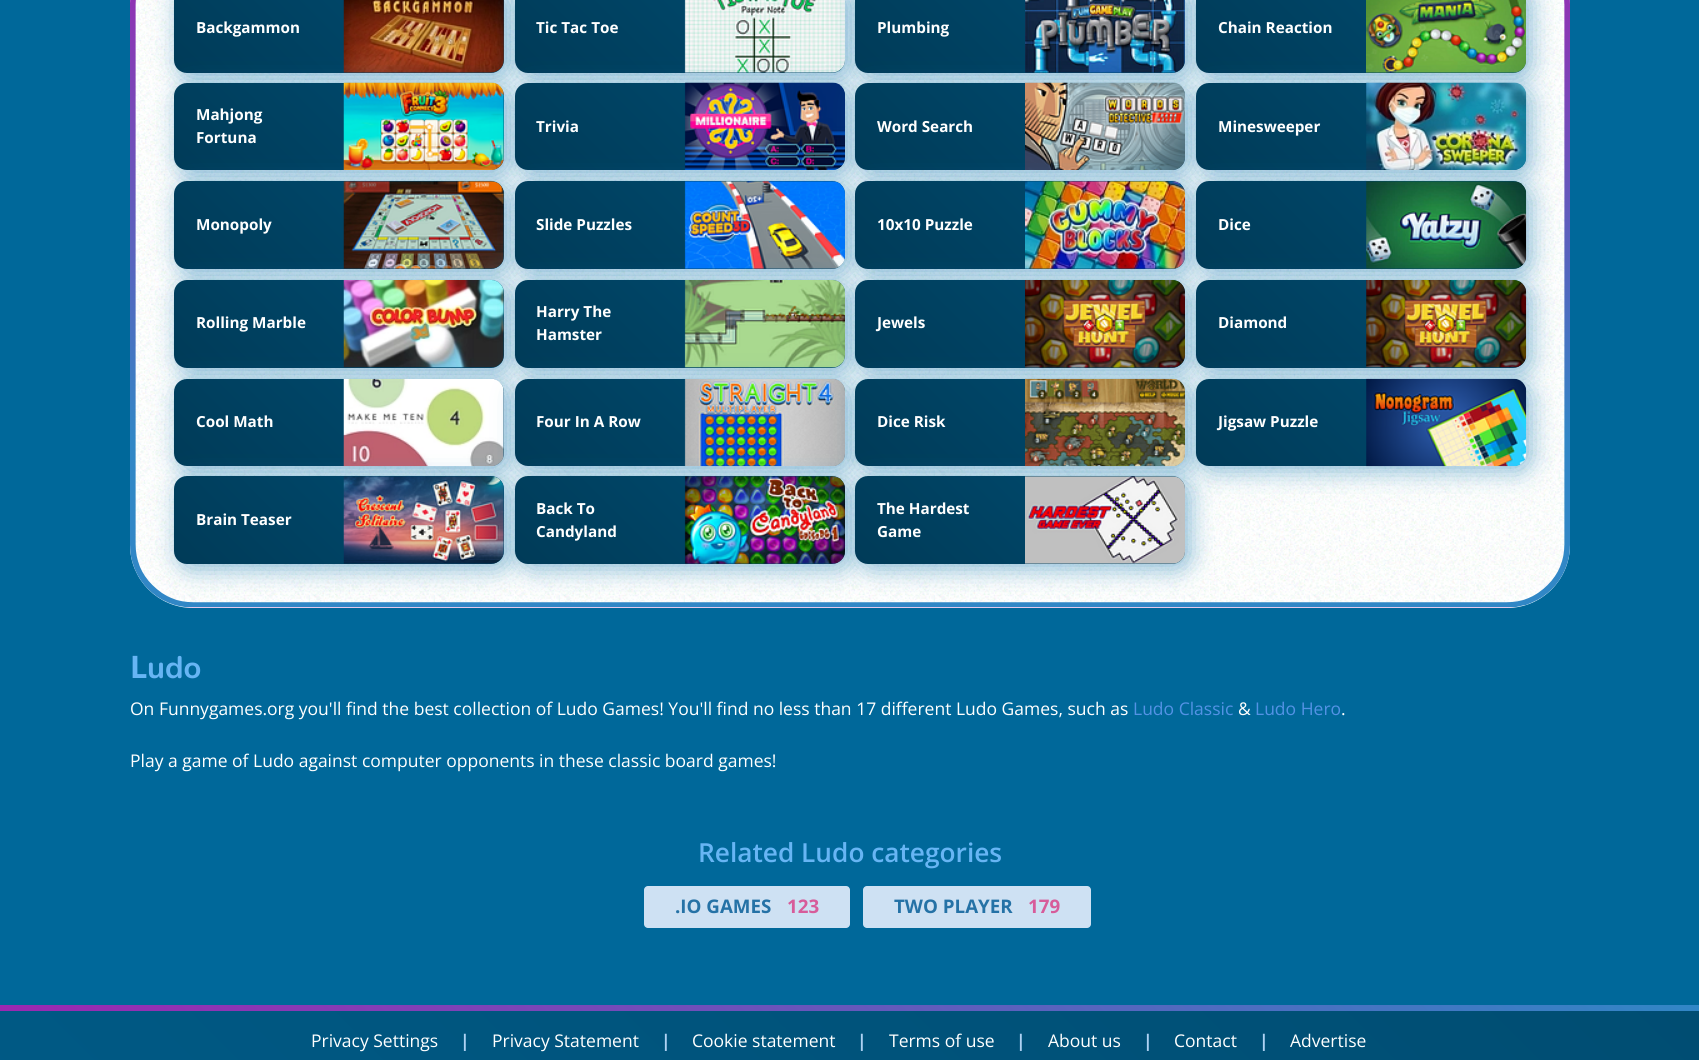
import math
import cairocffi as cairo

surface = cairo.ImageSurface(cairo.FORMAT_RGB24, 1699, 1060)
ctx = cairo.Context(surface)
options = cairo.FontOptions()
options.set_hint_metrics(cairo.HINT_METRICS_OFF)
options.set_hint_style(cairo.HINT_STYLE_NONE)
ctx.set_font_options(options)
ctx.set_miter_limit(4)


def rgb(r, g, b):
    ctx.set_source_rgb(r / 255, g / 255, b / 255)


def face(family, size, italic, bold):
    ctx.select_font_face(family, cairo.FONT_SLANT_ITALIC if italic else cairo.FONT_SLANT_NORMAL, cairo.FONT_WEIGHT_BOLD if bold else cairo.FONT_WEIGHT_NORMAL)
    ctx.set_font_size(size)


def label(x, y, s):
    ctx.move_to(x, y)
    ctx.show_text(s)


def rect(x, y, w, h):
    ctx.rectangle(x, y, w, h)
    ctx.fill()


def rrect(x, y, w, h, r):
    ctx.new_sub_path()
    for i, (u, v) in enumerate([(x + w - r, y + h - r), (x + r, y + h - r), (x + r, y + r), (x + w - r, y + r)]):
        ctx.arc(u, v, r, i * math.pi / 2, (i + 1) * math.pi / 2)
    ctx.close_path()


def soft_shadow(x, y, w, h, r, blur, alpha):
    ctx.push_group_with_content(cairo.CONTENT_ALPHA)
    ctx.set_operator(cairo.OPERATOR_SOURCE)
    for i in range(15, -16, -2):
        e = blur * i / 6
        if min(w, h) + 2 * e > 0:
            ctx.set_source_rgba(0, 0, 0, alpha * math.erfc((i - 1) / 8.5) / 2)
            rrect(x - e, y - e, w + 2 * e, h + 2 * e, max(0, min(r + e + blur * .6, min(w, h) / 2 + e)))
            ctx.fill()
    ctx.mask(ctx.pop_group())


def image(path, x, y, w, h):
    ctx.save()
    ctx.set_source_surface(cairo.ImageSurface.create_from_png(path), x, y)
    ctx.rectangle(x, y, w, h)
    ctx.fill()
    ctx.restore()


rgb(0, 104, 154)
ctx.paint()
rgb(255, 255, 255)
rrect(130, -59, 1440, 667, 63)
ctx.fill()
image('image0.png', 130, 0, 1440, 608)
rgb(18, 118, 175)
soft_shadow(179, -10, 330, 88, 13, 12.5, 0.5)
gradient = cairo.LinearGradient(234, 133, 443, -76)
gradient.add_color_stop_rgba(0, 0, 0.231, 0.345, 1)
gradient.add_color_stop_rgba(1, 0, 0.302, 0.447, 1)
ctx.set_source(gradient)
rrect(174, -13, 330, 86, 13)
ctx.fill()
face('Open Sans', 15.25, 0, 1)
rgb(255, 255, 255)
label(196, 33, 'Backgammon')
image('image1.png', 343, 0, 161, 73)
rgb(18, 118, 175)
soft_shadow(520, -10, 330, 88, 13, 12.5, 0.5)
gradient = cairo.LinearGradient(576, 133, 784, -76)
gradient.add_color_stop_rgba(0, 0, 0.231, 0.345, 1)
gradient.add_color_stop_rgba(1, 0, 0.302, 0.447, 1)
ctx.set_source(gradient)
rrect(515, -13, 330, 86, 13)
ctx.fill()
rgb(255, 255, 255)
label(536, 33, 'Tic Tac Toe')
image('image2.png', 684, 0, 161, 73)
rgb(18, 118, 175)
soft_shadow(860, -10, 330, 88, 13, 12.5, 0.5)
gradient = cairo.LinearGradient(916, 133, 1124, -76)
gradient.add_color_stop_rgba(0, 0, 0.231, 0.345, 1)
gradient.add_color_stop_rgba(1, 0, 0.302, 0.447, 1)
ctx.set_source(gradient)
rrect(855, -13, 330, 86, 13)
ctx.fill()
rgb(255, 255, 255)
label(877, 33, 'Plumbing')
image('image3.png', 1025, 0, 160, 73)
rgb(18, 118, 175)
soft_shadow(1201, -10, 330, 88, 13, 12.5, 0.5)
gradient = cairo.LinearGradient(1257, 133, 1466, -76)
gradient.add_color_stop_rgba(0, 0, 0.231, 0.345, 1)
gradient.add_color_stop_rgba(1, 0, 0.302, 0.447, 1)
ctx.set_source(gradient)
rrect(1196, -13, 330, 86, 13)
ctx.fill()
rgb(255, 255, 255)
label(1218, 33, 'Chain Reaction')
image('image4.png', 1366, 0, 160, 73)
rgb(18, 118, 175)
soft_shadow(179, 88, 330, 87, 13, 12.5, 0.5)
gradient = cairo.LinearGradient(234, 231, 443, 22)
gradient.add_color_stop_rgba(0, 0, 0.231, 0.345, 1)
gradient.add_color_stop_rgba(1, 0, 0.302, 0.447, 1)
ctx.set_source(gradient)
rrect(174, 83, 330, 87, 13)
ctx.fill()
rgb(255, 255, 255)
label(196, 120, 'Mahjong')
label(196, 143, 'Fortuna')
image('image5.png', 343, 82, 161, 88)
rgb(18, 118, 175)
soft_shadow(520, 88, 330, 87, 13, 12.5, 0.5)
gradient = cairo.LinearGradient(576, 231, 784, 22)
gradient.add_color_stop_rgba(0, 0, 0.231, 0.345, 1)
gradient.add_color_stop_rgba(1, 0, 0.302, 0.447, 1)
ctx.set_source(gradient)
rrect(515, 83, 330, 87, 13)
ctx.fill()
rgb(255, 255, 255)
label(536, 132, 'Trivia')
image('image6.png', 684, 82, 161, 88)
rgb(18, 118, 175)
soft_shadow(860, 88, 330, 87, 13, 12.5, 0.5)
gradient = cairo.LinearGradient(916, 231, 1124, 22)
gradient.add_color_stop_rgba(0, 0, 0.231, 0.345, 1)
gradient.add_color_stop_rgba(1, 0, 0.302, 0.447, 1)
ctx.set_source(gradient)
rrect(855, 83, 330, 87, 13)
ctx.fill()
rgb(255, 255, 255)
label(877, 132, 'Word Search')
image('image7.png', 1025, 82, 160, 88)
rgb(18, 118, 175)
soft_shadow(1201, 88, 330, 87, 13, 12.5, 0.5)
gradient = cairo.LinearGradient(1257, 231, 1466, 22)
gradient.add_color_stop_rgba(0, 0, 0.231, 0.345, 1)
gradient.add_color_stop_rgba(1, 0, 0.302, 0.447, 1)
ctx.set_source(gradient)
rrect(1196, 83, 330, 87, 13)
ctx.fill()
rgb(255, 255, 255)
label(1218, 132, 'Minesweeper')
image('image8.png', 1366, 82, 161, 88)
rgb(18, 118, 175)
soft_shadow(179, 186, 330, 88, 13, 12.5, 0.5)
gradient = cairo.LinearGradient(234, 329, 443, 121)
gradient.add_color_stop_rgba(0, 0, 0.231, 0.345, 1)
gradient.add_color_stop_rgba(1, 0, 0.302, 0.447, 1)
ctx.set_source(gradient)
rrect(174, 181, 330, 88, 13)
ctx.fill()
rgb(255, 255, 255)
label(196, 230, 'Monopoly')
image('image9.png', 343, 181, 161, 88)
rgb(18, 118, 175)
soft_shadow(520, 186, 330, 88, 13, 12.5, 0.5)
gradient = cairo.LinearGradient(576, 329, 784, 121)
gradient.add_color_stop_rgba(0, 0, 0.231, 0.345, 1)
gradient.add_color_stop_rgba(1, 0, 0.302, 0.447, 1)
ctx.set_source(gradient)
rrect(515, 181, 330, 88, 13)
ctx.fill()
rgb(255, 255, 255)
label(536, 230, 'Slide Puzzles')
image('image10.png', 684, 181, 161, 88)
rgb(18, 118, 175)
soft_shadow(860, 186, 330, 88, 13, 12.5, 0.5)
gradient = cairo.LinearGradient(916, 329, 1124, 121)
gradient.add_color_stop_rgba(0, 0, 0.231, 0.345, 1)
gradient.add_color_stop_rgba(1, 0, 0.302, 0.447, 1)
ctx.set_source(gradient)
rrect(855, 181, 330, 88, 13)
ctx.fill()
rgb(255, 255, 255)
label(877, 230, '10x10 Puzzle')
image('image11.png', 1025, 181, 160, 88)
rgb(18, 118, 175)
soft_shadow(1201, 186, 330, 88, 13, 12.5, 0.5)
gradient = cairo.LinearGradient(1257, 329, 1466, 121)
gradient.add_color_stop_rgba(0, 0, 0.231, 0.345, 1)
gradient.add_color_stop_rgba(1, 0, 0.302, 0.447, 1)
ctx.set_source(gradient)
rrect(1196, 181, 330, 88, 13)
ctx.fill()
rgb(255, 255, 255)
label(1218, 230, 'Dice')
image('image12.png', 1366, 181, 161, 88)
rgb(18, 118, 175)
soft_shadow(179, 285, 330, 88, 13, 12.5, 0.5)
gradient = cairo.LinearGradient(234, 428, 443, 219)
gradient.add_color_stop_rgba(0, 0, 0.231, 0.345, 1)
gradient.add_color_stop_rgba(1, 0, 0.302, 0.447, 1)
ctx.set_source(gradient)
rrect(174, 280, 330, 88, 13)
ctx.fill()
rgb(255, 255, 255)
label(196, 328, 'Rolling Marble')
image('image13.png', 343, 280, 161, 88)
rgb(18, 118, 175)
soft_shadow(520, 285, 330, 88, 13, 12.5, 0.5)
gradient = cairo.LinearGradient(576, 428, 784, 219)
gradient.add_color_stop_rgba(0, 0, 0.231, 0.345, 1)
gradient.add_color_stop_rgba(1, 0, 0.302, 0.447, 1)
ctx.set_source(gradient)
rrect(515, 280, 330, 88, 13)
ctx.fill()
rgb(255, 255, 255)
label(536, 317, 'Harry The')
label(536, 340, 'Hamster')
image('image14.png', 684, 280, 161, 88)
rgb(18, 118, 175)
soft_shadow(860, 285, 330, 88, 13, 12.5, 0.5)
gradient = cairo.LinearGradient(916, 428, 1124, 219)
gradient.add_color_stop_rgba(0, 0, 0.231, 0.345, 1)
gradient.add_color_stop_rgba(1, 0, 0.302, 0.447, 1)
ctx.set_source(gradient)
rrect(855, 280, 330, 88, 13)
ctx.fill()
rgb(255, 255, 255)
label(877, 328, 'Jewels')
image('image15.png', 1025, 280, 160, 88)
rgb(18, 118, 175)
soft_shadow(1201, 285, 330, 88, 13, 12.5, 0.5)
gradient = cairo.LinearGradient(1257, 428, 1466, 219)
gradient.add_color_stop_rgba(0, 0, 0.231, 0.345, 1)
gradient.add_color_stop_rgba(1, 0, 0.302, 0.447, 1)
ctx.set_source(gradient)
rrect(1196, 280, 330, 88, 13)
ctx.fill()
rgb(255, 255, 255)
label(1218, 328, 'Diamond')
image('image16.png', 1366, 280, 161, 88)
rgb(18, 118, 175)
soft_shadow(179, 384, 330, 87, 13, 12.5, 0.5)
gradient = cairo.LinearGradient(234, 527, 443, 318)
gradient.add_color_stop_rgba(0, 0, 0.231, 0.345, 1)
gradient.add_color_stop_rgba(1, 0, 0.302, 0.447, 1)
ctx.set_source(gradient)
rrect(174, 379, 330, 87, 13)
ctx.fill()
rgb(255, 255, 255)
label(196, 427, 'Cool Math')
image('image17.png', 343, 378, 161, 89)
rgb(18, 118, 175)
soft_shadow(520, 384, 330, 87, 13, 12.5, 0.5)
gradient = cairo.LinearGradient(576, 527, 784, 318)
gradient.add_color_stop_rgba(0, 0, 0.231, 0.345, 1)
gradient.add_color_stop_rgba(1, 0, 0.302, 0.447, 1)
ctx.set_source(gradient)
rrect(515, 379, 330, 87, 13)
ctx.fill()
rgb(255, 255, 255)
label(536, 427, 'Four In A Row')
image('image18.png', 684, 379, 161, 88)
rgb(18, 118, 175)
soft_shadow(860, 384, 330, 87, 13, 12.5, 0.5)
gradient = cairo.LinearGradient(916, 527, 1124, 318)
gradient.add_color_stop_rgba(0, 0, 0.231, 0.345, 1)
gradient.add_color_stop_rgba(1, 0, 0.302, 0.447, 1)
ctx.set_source(gradient)
rrect(855, 379, 330, 87, 13)
ctx.fill()
rgb(255, 255, 255)
label(877, 427, 'Dice Risk')
image('image19.png', 1025, 378, 160, 89)
rgb(18, 118, 175)
soft_shadow(1201, 384, 330, 87, 13, 12.5, 0.5)
gradient = cairo.LinearGradient(1257, 527, 1466, 318)
gradient.add_color_stop_rgba(0, 0, 0.231, 0.345, 1)
gradient.add_color_stop_rgba(1, 0, 0.302, 0.447, 1)
ctx.set_source(gradient)
rrect(1196, 379, 330, 87, 13)
ctx.fill()
rgb(255, 255, 255)
label(1218, 427, 'Jigsaw Puzzle')
image('image20.png', 1366, 378, 161, 89)
rgb(18, 118, 175)
soft_shadow(179, 481, 330, 88, 13, 12.5, 0.5)
gradient = cairo.LinearGradient(234, 624, 443, 416)
gradient.add_color_stop_rgba(0, 0, 0.231, 0.345, 1)
gradient.add_color_stop_rgba(1, 0, 0.302, 0.447, 1)
ctx.set_source(gradient)
rrect(174, 476, 330, 88, 13)
ctx.fill()
rgb(255, 255, 255)
label(196, 525, 'Brain Teaser')
image('image21.png', 343, 476, 161, 88)
rgb(18, 118, 175)
soft_shadow(520, 481, 330, 88, 13, 12.5, 0.5)
gradient = cairo.LinearGradient(576, 624, 784, 416)
gradient.add_color_stop_rgba(0, 0, 0.231, 0.345, 1)
gradient.add_color_stop_rgba(1, 0, 0.302, 0.447, 1)
ctx.set_source(gradient)
rrect(515, 476, 330, 88, 13)
ctx.fill()
rgb(255, 255, 255)
label(536, 514, 'Back To')
label(536, 537, 'Candyland')
image('image22.png', 684, 476, 161, 88)
rgb(18, 118, 175)
soft_shadow(860, 481, 330, 88, 13, 12.5, 0.5)
gradient = cairo.LinearGradient(916, 624, 1124, 416)
gradient.add_color_stop_rgba(0, 0, 0.231, 0.345, 1)
gradient.add_color_stop_rgba(1, 0, 0.302, 0.447, 1)
ctx.set_source(gradient)
rrect(855, 476, 330, 88, 13)
ctx.fill()
rgb(255, 255, 255)
label(877, 514, 'The Hardest')
label(877, 537, 'Game')
image('image23.png', 1025, 476, 160, 88)
face('Noto Sans', 31, 0, 1)
rgb(103, 181, 244)
label(130, 678, 'L')
face('Nunito', 31, 0, 1)
label(147, 678, 'udo')
face('Open Sans', 17.5, 0, 0)
rgb(255, 255, 255)
label(130, 715, 'On Funnygames.org you\'ll find the best collection of Ludo Games! You\'ll find no less than 17 different Ludo Games, such as')
rgb(83, 146, 229)
label(1133, 715, 'Ludo Classic')
rgb(255, 255, 255)
label(1238, 715, '&')
rgb(83, 146, 229)
label(1255, 715, 'Ludo Hero')
rgb(255, 255, 255)
label(1341, 715, '.')
label(130, 767, 'Play a game of Ludo against computer opponents in these classic board games!')
face('Open Sans SemiBold', 26.25, 0, 0)
rgb(103, 181, 244)
label(698, 862, 'Related Ludo categories')
rgb(206, 225, 243)
rrect(644, 886, 206, 42, 4)
ctx.fill()
face('Open Sans', 18.75, 0, 1)
rgb(37, 114, 166)
label(675, 913, '.IO GAMES')
rgb(215, 92, 154)
label(787, 913, '123')
rgb(206, 225, 243)
rrect(863, 886, 228, 42, 4)
ctx.fill()
rgb(37, 114, 166)
label(894, 913, 'TWO PLAYER')
rgb(215, 92, 154)
label(1028, 913, '179')
gradient = cairo.LinearGradient(380, 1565, 1320, 625)
gradient.add_color_stop_rgba(0, 0, 0.353, 0.525, 1)
gradient.add_color_stop_rgba(1, 0, 0.302, 0.447, 1)
ctx.set_source(gradient)
rect(0, 1011, 1699, 49)
gradient = cairo.LinearGradient(423, 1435, 1277, 582)
gradient.add_color_stop_rgba(0, 0.612, 0.157, 0.694, 1)
gradient.add_color_stop_rgba(1, 0.192, 0.529, 0.776, 1)
ctx.set_source(gradient)
rect(0, 1005, 1699, 6)
face('Open Sans', 17.5, 0, 0)
rgb(255, 255, 255)
label(311, 1047, 'Privacy Settings')
face('Open Sans', 17.5, 0, 1)
rgb(174, 210, 243)
label(460, 1047, '|')
face('Open Sans', 17.5, 0, 0)
rgb(255, 255, 255)
label(492, 1047, 'Privacy Statement')
face('Open Sans', 17.5, 0, 1)
rgb(174, 210, 243)
label(661, 1047, '|')
face('Open Sans', 17.5, 0, 0)
rgb(255, 255, 255)
label(692, 1047, 'Cookie statement')
face('Open Sans', 17.5, 0, 1)
rgb(174, 210, 243)
label(857, 1047, '|')
face('Open Sans', 17.5, 0, 0)
rgb(255, 255, 255)
label(889, 1047, 'Terms of use')
face('Open Sans', 17.5, 0, 1)
rgb(174, 210, 243)
label(1016, 1047, '|')
face('Open Sans', 17.5, 0, 0)
rgb(255, 255, 255)
label(1048, 1047, 'About us')
face('Open Sans', 17.5, 0, 1)
rgb(174, 210, 243)
label(1143, 1047, '|')
face('Open Sans', 17.5, 0, 0)
rgb(255, 255, 255)
label(1174, 1047, 'Contact')
face('Open Sans', 17.5, 0, 1)
rgb(174, 210, 243)
label(1259, 1047, '|')
face('Open Sans', 17.5, 0, 0)
rgb(255, 255, 255)
label(1290, 1047, 'Advertise')
surface.write_to_png('render.png')
